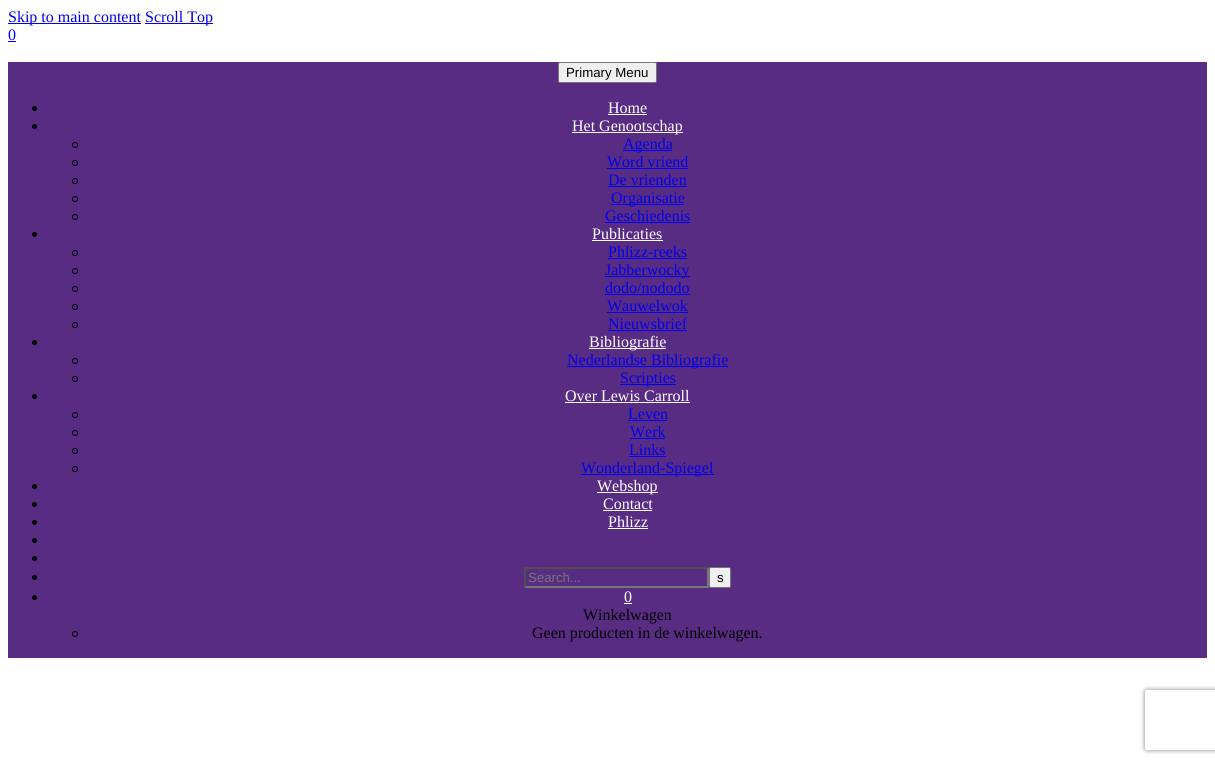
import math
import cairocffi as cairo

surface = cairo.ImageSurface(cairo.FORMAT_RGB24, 1215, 764)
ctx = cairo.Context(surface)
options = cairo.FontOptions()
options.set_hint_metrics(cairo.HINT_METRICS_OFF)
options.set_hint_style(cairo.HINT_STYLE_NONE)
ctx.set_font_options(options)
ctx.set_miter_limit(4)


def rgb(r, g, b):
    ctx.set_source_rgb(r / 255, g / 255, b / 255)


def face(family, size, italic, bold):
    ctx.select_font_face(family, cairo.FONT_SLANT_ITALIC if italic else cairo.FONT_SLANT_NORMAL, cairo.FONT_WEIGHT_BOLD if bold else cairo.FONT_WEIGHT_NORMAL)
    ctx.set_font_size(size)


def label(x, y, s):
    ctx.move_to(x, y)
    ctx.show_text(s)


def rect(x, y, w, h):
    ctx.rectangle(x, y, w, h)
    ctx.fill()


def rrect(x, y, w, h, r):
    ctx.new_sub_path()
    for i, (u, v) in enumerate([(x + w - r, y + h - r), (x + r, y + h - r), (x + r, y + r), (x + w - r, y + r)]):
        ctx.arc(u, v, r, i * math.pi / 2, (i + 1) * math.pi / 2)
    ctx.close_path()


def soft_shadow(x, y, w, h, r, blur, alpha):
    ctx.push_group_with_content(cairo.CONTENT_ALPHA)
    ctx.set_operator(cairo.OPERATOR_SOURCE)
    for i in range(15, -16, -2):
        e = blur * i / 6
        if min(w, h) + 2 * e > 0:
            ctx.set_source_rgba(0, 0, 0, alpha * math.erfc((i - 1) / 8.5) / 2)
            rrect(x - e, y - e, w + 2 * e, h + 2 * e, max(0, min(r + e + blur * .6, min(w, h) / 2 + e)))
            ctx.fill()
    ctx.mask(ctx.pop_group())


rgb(255, 255, 255)
ctx.paint()
rgb(0, 0, 238)
rect(8, 23, 133, 1)
face('Liberation Serif', 16, 0, 0)
label(8, 22, 'Skip to main content')
rect(145, 23, 68, 1)
label(145, 22, 'Scroll Top')
label(8, 40, '0')
rect(8, 41, 8, 1)
rgb(88, 44, 131)
rect(8, 62, 1199, 596)
rgb(239, 239, 239)
rrect(558.5, 62.5, 98, 20, 1.5)
ctx.fill_preserve()
rgb(118, 118, 118)
ctx.set_line_width(1)
ctx.stroke()
face('Liberation Sans', 13.25, 0, 0)
rgb(0, 0, 0)
label(566, 77, 'Primary Menu')
ctx.new_path()
ctx.arc(34.5, 108.5, 2.5, 0, 2 * math.pi)
ctx.fill()
face('Liberation Serif', 16, 0, 0)
rgb(255, 255, 255)
label(608, 113, 'Home')
rect(608, 114, 39, 1)
rgb(0, 0, 0)
ctx.new_path()
ctx.arc(34.5, 126.5, 2.5, 0, 2 * math.pi)
ctx.fill()
rgb(255, 255, 255)
rect(572, 132, 111, 1)
label(572, 131, 'Het Genootschap')
ctx.new_path()
ctx.arc(75, 145, 2.5, 0, 2 * math.pi)
rgb(0, 0, 0)
ctx.stroke()
rgb(0, 0, 238)
rect(623, 150, 49, 1)
label(623, 149, 'Agenda')
ctx.new_path()
ctx.arc(75, 163, 2.5, 0, 2 * math.pi)
rgb(0, 0, 0)
ctx.stroke()
rgb(0, 0, 238)
label(607, 167, 'Word vriend')
rect(607, 168, 81, 1)
ctx.new_path()
ctx.arc(75, 181, 2.5, 0, 2 * math.pi)
rgb(0, 0, 0)
ctx.stroke()
rgb(0, 0, 238)
label(608, 185, 'De vrienden')
rect(608, 186, 79, 1)
ctx.new_path()
ctx.arc(75, 199, 2.5, 0, 2 * math.pi)
rgb(0, 0, 0)
ctx.stroke()
rgb(0, 0, 238)
rect(611, 204, 73, 1)
label(611, 203, 'Organisatie')
ctx.new_path()
ctx.arc(75, 217, 2.5, 0, 2 * math.pi)
rgb(0, 0, 0)
ctx.stroke()
rgb(0, 0, 238)
label(605, 221, 'Geschiedenis')
rect(605, 222, 85, 1)
rgb(0, 0, 0)
ctx.new_path()
ctx.arc(34.5, 234.5, 2.5, 0, 2 * math.pi)
ctx.fill()
rgb(255, 255, 255)
label(592, 239, 'Publicaties')
rect(592, 240, 71, 1)
ctx.new_path()
ctx.arc(75, 253, 2.5, 0, 2 * math.pi)
rgb(0, 0, 0)
ctx.stroke()
rgb(0, 0, 238)
label(608, 257, 'Phlizz-reeks')
rect(608, 258, 79, 1)
ctx.new_path()
ctx.arc(75, 271, 2.5, 0, 2 * math.pi)
rgb(0, 0, 0)
ctx.stroke()
rgb(0, 0, 238)
rect(605, 276, 85, 1)
label(605, 275, 'Jabberwocky')
ctx.new_path()
ctx.arc(75, 289, 2.5, 0, 2 * math.pi)
rgb(0, 0, 0)
ctx.stroke()
rgb(0, 0, 238)
label(605, 293, 'dodo/nododo')
rect(605, 294, 85, 1)
ctx.new_path()
ctx.arc(75, 307, 2.5, 0, 2 * math.pi)
rgb(0, 0, 0)
ctx.stroke()
rgb(0, 0, 238)
label(607, 311, 'Wauwelwok')
rect(607, 312, 81, 1)
ctx.new_path()
ctx.arc(75, 325, 2.5, 0, 2 * math.pi)
rgb(0, 0, 0)
ctx.stroke()
rgb(0, 0, 238)
label(608, 329, 'Nieuwsbrief')
rect(608, 330, 79, 1)
rgb(0, 0, 0)
ctx.new_path()
ctx.arc(34.5, 342.5, 2.5, 0, 2 * math.pi)
ctx.fill()
rgb(255, 255, 255)
rect(589, 348, 77, 1)
label(589, 347, 'Bibliografie')
ctx.new_path()
ctx.arc(75, 361, 2.5, 0, 2 * math.pi)
rgb(0, 0, 0)
ctx.stroke()
rgb(0, 0, 238)
rect(567, 366, 161, 1)
label(567, 365, 'Nederlandse Bibliografie')
ctx.new_path()
ctx.arc(75, 379, 2.5, 0, 2 * math.pi)
rgb(0, 0, 0)
ctx.stroke()
rgb(0, 0, 238)
rect(620, 384, 56, 1)
label(620, 383, 'Scripties')
rgb(0, 0, 0)
ctx.new_path()
ctx.arc(34.5, 396.5, 2.5, 0, 2 * math.pi)
ctx.fill()
rgb(255, 255, 255)
label(565, 401, 'Over Lewis Carroll')
rect(565, 402, 125, 1)
ctx.new_path()
ctx.arc(75, 415, 2.5, 0, 2 * math.pi)
rgb(0, 0, 0)
ctx.stroke()
rgb(0, 0, 238)
label(628, 419, 'Leven')
rect(628, 420, 39, 1)
ctx.new_path()
ctx.arc(75, 433, 2.5, 0, 2 * math.pi)
rgb(0, 0, 0)
ctx.stroke()
rgb(0, 0, 238)
label(630, 437, 'Werk')
rect(630, 438, 35, 1)
ctx.new_path()
ctx.arc(75, 451, 2.5, 0, 2 * math.pi)
rgb(0, 0, 0)
ctx.stroke()
rgb(0, 0, 238)
label(629, 455, 'Links')
rect(629, 456, 37, 1)
ctx.new_path()
ctx.arc(75, 469, 2.5, 0, 2 * math.pi)
rgb(0, 0, 0)
ctx.stroke()
rgb(0, 0, 238)
rect(581, 474, 133, 1)
label(581, 473, 'Wonderland-Spiegel')
rgb(0, 0, 0)
ctx.new_path()
ctx.arc(34.5, 486.5, 2.5, 0, 2 * math.pi)
ctx.fill()
rgb(255, 255, 255)
rect(597, 492, 61, 1)
label(597, 491, 'Webshop')
rgb(0, 0, 0)
ctx.new_path()
ctx.arc(34.5, 504.5, 2.5, 0, 2 * math.pi)
ctx.fill()
rgb(255, 255, 255)
label(603, 509, 'Contact')
rect(603, 510, 49, 1)
rgb(0, 0, 0)
ctx.new_path()
ctx.arc(34.5, 522.5, 2.5, 0, 2 * math.pi)
ctx.fill()
rgb(255, 255, 255)
label(608, 527, 'Phlizz')
rect(608, 528, 40, 1)
rgb(0, 0, 0)
ctx.new_path()
ctx.arc(34.5, 540.5, 2.5, 0, 2 * math.pi)
ctx.fill()
ctx.arc(34.5, 558.5, 2.5, 0, 2 * math.pi)
ctx.fill()
ctx.arc(34.5, 577.5, 2.5, 0, 2 * math.pi)
ctx.fill()
rgb(79, 79, 79)
ctx.new_path()
ctx.move_to(524, 567)
ctx.line_to(709, 567)
ctx.line_to(707, 569)
ctx.line_to(526, 569)
ctx.close_path()
ctx.fill()
rgb(118, 118, 118)
ctx.new_path()
ctx.move_to(709, 567)
ctx.line_to(709, 588)
ctx.line_to(707, 586)
ctx.line_to(707, 569)
ctx.close_path()
ctx.fill()
ctx.new_path()
ctx.move_to(709, 588)
ctx.line_to(524, 588)
ctx.line_to(526, 586)
ctx.line_to(707, 586)
ctx.close_path()
ctx.fill()
rgb(79, 79, 79)
ctx.new_path()
ctx.move_to(524, 588)
ctx.line_to(524, 567)
ctx.line_to(526, 569)
ctx.line_to(526, 586)
ctx.close_path()
ctx.fill()
face('Liberation Sans', 13.25, 0, 0)
rgb(117, 117, 117)
label(528, 582, 'Search...')
rgb(239, 239, 239)
rrect(709.5, 567.5, 21, 20, 1.5)
ctx.fill_preserve()
rgb(118, 118, 118)
ctx.stroke()
rgb(0, 0, 0)
label(717, 582, 's')
ctx.new_path()
ctx.arc(34.5, 597.5, 2.5, 0, 2 * math.pi)
ctx.fill()
face('Liberation Serif', 16, 0, 0)
rgb(255, 255, 255)
label(624, 602, '0')
rect(624, 603, 8, 1)
rgb(0, 0, 0)
label(583, 620, 'Winkelwagen')
ctx.new_path()
ctx.arc(75, 634, 2.5, 0, 2 * math.pi)
ctx.stroke()
label(532, 638, 'Geen producten in de winkelwagen.')
ctx.save()
ctx.set_fill_rule(cairo.FILL_RULE_EVEN_ODD)
ctx.new_path()
ctx.move_to(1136, 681)
ctx.line_to(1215, 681)
ctx.line_to(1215, 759)
ctx.line_to(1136, 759)
ctx.close_path()
ctx.move_to(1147, 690)
ctx.line_to(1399, 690)
ctx.curve_to(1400, 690, 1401, 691, 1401, 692)
ctx.line_to(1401, 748)
ctx.curve_to(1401, 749, 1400, 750, 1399, 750)
ctx.line_to(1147, 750)
ctx.curve_to(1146, 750, 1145, 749, 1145, 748)
ctx.line_to(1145, 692)
ctx.curve_to(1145, 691, 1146, 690, 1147, 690)
ctx.close_path()
ctx.clip()
rgb(128, 128, 128)
soft_shadow(1145, 690, 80, 60, 2, 2.5, 1)
ctx.restore()
surface.write_to_png('render.png')
